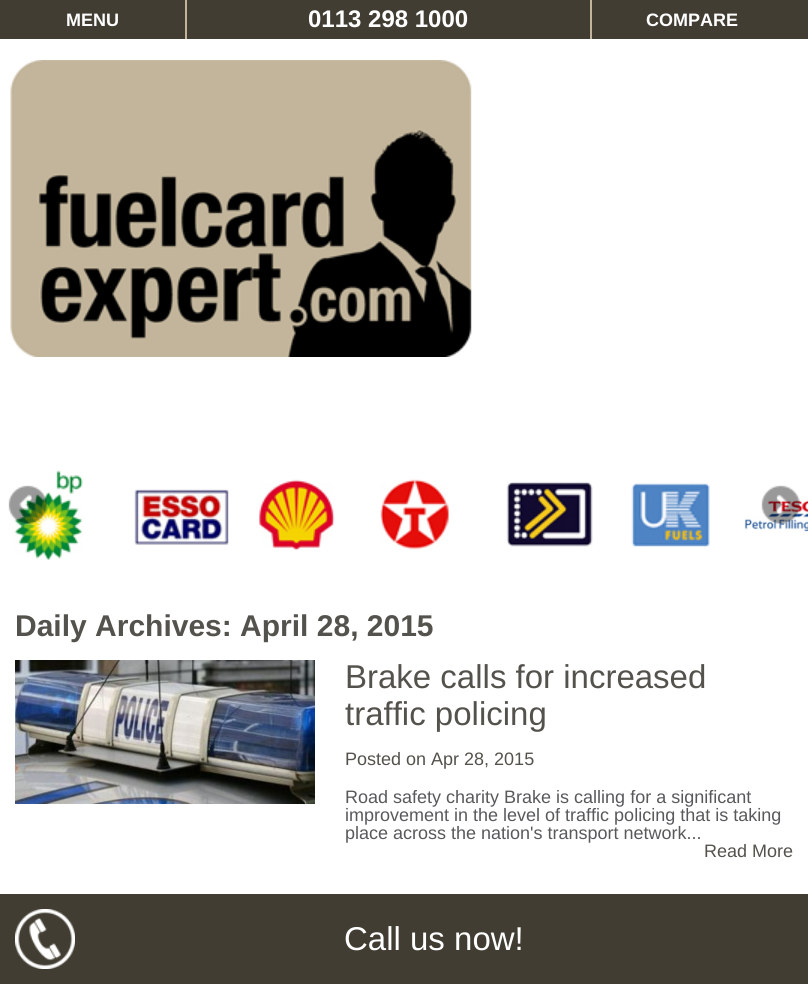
import math
import cairocffi as cairo

surface = cairo.ImageSurface(cairo.FORMAT_RGB24, 808, 984)
ctx = cairo.Context(surface)
options = cairo.FontOptions()
options.set_hint_metrics(cairo.HINT_METRICS_OFF)
options.set_hint_style(cairo.HINT_STYLE_NONE)
ctx.set_font_options(options)
ctx.set_miter_limit(4)


def rgb(r, g, b):
    ctx.set_source_rgb(r / 255, g / 255, b / 255)


def face(family, size, italic, bold):
    ctx.select_font_face(family, cairo.FONT_SLANT_ITALIC if italic else cairo.FONT_SLANT_NORMAL, cairo.FONT_WEIGHT_BOLD if bold else cairo.FONT_WEIGHT_NORMAL)
    ctx.set_font_size(size)


def label(x, y, s):
    ctx.move_to(x, y)
    ctx.show_text(s)


def rect(x, y, w, h):
    ctx.rectangle(x, y, w, h)
    ctx.fill()


def image(path, x, y, w, h):
    ctx.save()
    ctx.set_source_surface(cairo.ImageSurface.create_from_png(path), x, y)
    ctx.rectangle(x, y, w, h)
    ctx.fill()
    ctx.restore()


rgb(255, 255, 255)
ctx.paint()
rgb(65, 61, 50)
rect(0, 0, 808, 39)
rgb(195, 181, 155)
rect(185, 0, 2, 39)
face('Liberation Sans', 18, 0, 1)
rgb(255, 255, 255)
label(66, 26, 'MENU')
face('Liberation Sans', 24, 0, 1)
label(308, 27, '0113 298 1000')
rgb(195, 181, 155)
rect(590, 0, 2, 39)
face('Liberation Sans', 18, 0, 1)
rgb(255, 255, 255)
label(646, 26, 'COMPARE')
image('image0.png', 10, 60, 462, 297)
image('image1.png', 14, 470, 69, 90)
image('image2.png', 134, 489, 95, 57)
image('image3.png', 259, 479, 76, 72)
image('image4.png', 380, 479, 69, 71)
image('image5.png', 506, 481, 87, 66)
image('image6.png', 631, 482, 79, 65)
image('image7.png', 744, 500, 64, 32)
image('image8.png', 8, 485, 39, 40)
image('image9.png', 761, 485, 39, 40)
face('Liberation Sans', 30, 0, 1)
rgb(84, 82, 76)
label(15, 636, 'Daily Archives: April 28, 2015')
image('image10.png', 15, 660, 300, 144)
face('Liberation Sans', 33, 0, 0)
label(345, 688, 'Brake calls for increased')
label(345, 725, 'traffic policing')
face('Liberation Sans', 18, 0, 0)
label(345, 765, 'Posted on Apr 28, 2015')
rgb(88, 89, 91)
label(345, 803, 'Road safety charity Brake is calling for a significant')
label(345, 821, 'improvement in the level of traffic policing that is taking')
label(345, 839, 'place across the nation\'s transport network...')
rgb(84, 82, 76)
label(704, 857, 'Read More')
rgb(65, 61, 50)
rect(0, 894, 808, 90)
image('image11.png', 15, 909, 60, 60)
face('Liberation Sans', 33, 0, 0)
rgb(255, 255, 255)
label(344, 950, 'Call us now!')
surface.write_to_png('render.png')
